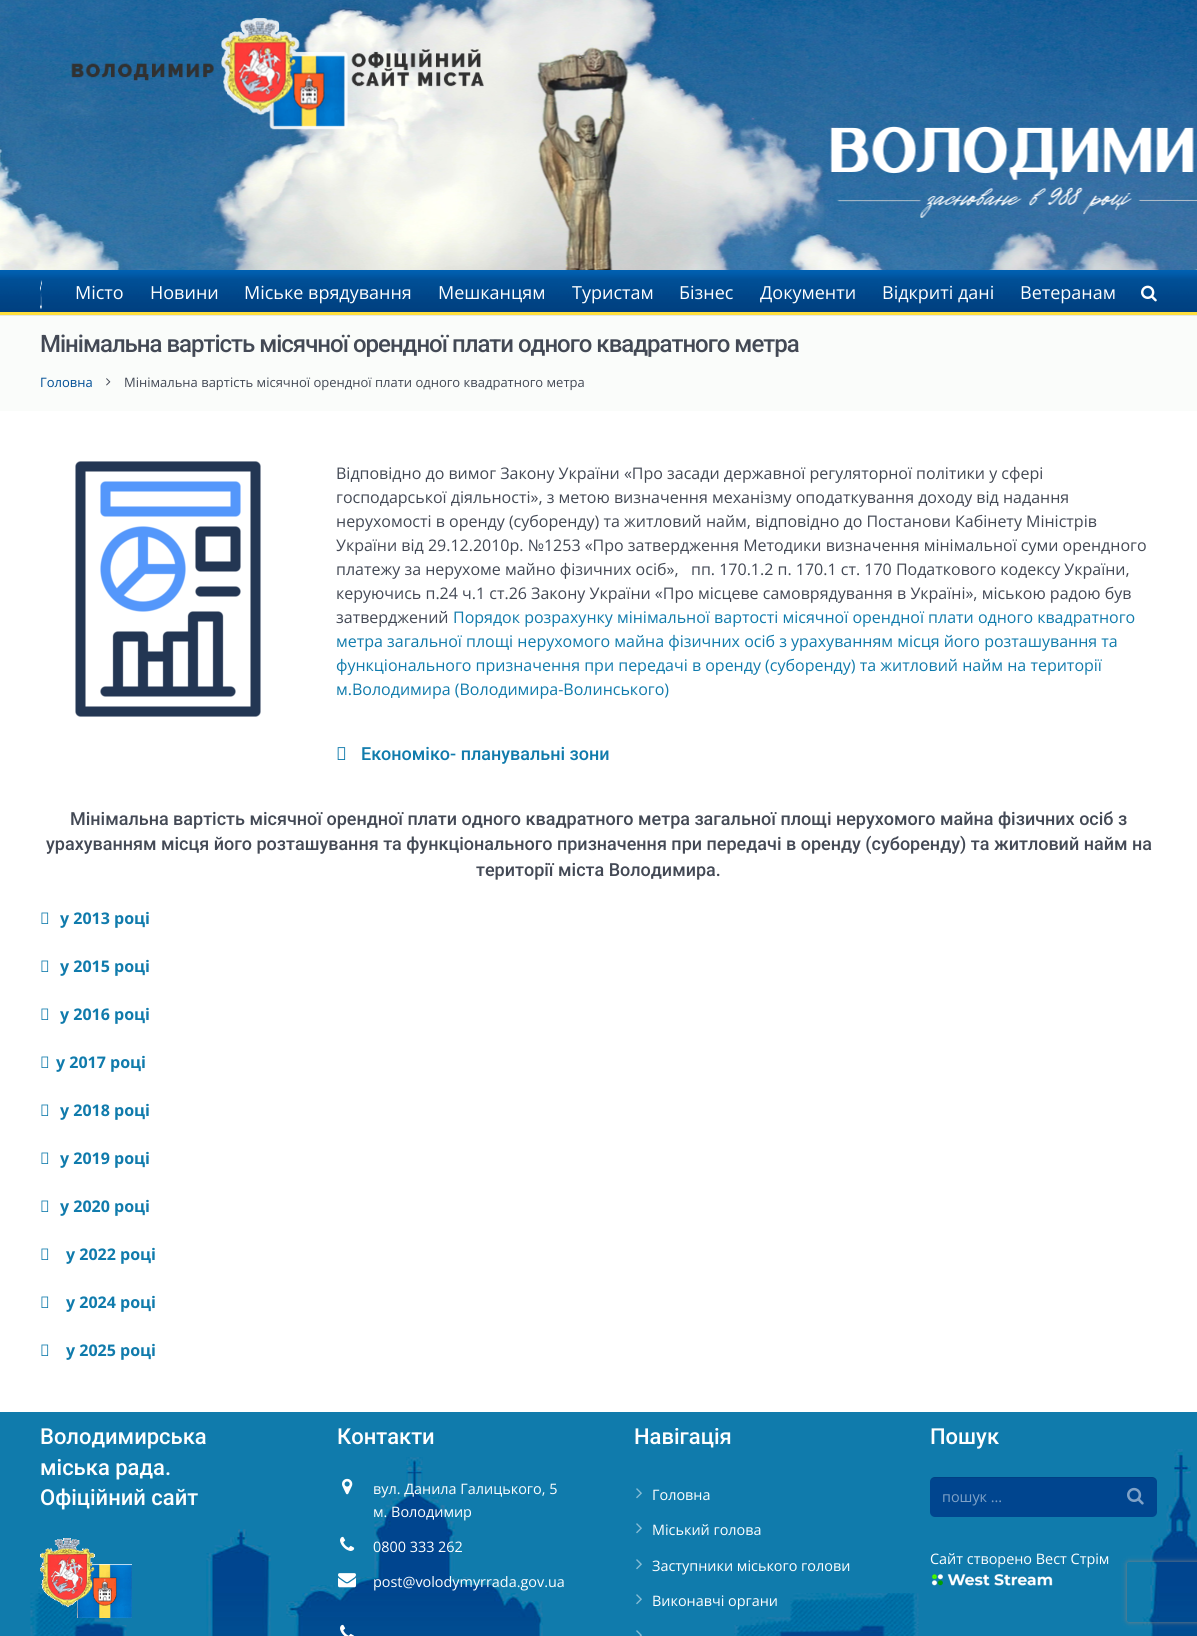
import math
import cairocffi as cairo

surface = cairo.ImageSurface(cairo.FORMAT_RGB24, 1197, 1636)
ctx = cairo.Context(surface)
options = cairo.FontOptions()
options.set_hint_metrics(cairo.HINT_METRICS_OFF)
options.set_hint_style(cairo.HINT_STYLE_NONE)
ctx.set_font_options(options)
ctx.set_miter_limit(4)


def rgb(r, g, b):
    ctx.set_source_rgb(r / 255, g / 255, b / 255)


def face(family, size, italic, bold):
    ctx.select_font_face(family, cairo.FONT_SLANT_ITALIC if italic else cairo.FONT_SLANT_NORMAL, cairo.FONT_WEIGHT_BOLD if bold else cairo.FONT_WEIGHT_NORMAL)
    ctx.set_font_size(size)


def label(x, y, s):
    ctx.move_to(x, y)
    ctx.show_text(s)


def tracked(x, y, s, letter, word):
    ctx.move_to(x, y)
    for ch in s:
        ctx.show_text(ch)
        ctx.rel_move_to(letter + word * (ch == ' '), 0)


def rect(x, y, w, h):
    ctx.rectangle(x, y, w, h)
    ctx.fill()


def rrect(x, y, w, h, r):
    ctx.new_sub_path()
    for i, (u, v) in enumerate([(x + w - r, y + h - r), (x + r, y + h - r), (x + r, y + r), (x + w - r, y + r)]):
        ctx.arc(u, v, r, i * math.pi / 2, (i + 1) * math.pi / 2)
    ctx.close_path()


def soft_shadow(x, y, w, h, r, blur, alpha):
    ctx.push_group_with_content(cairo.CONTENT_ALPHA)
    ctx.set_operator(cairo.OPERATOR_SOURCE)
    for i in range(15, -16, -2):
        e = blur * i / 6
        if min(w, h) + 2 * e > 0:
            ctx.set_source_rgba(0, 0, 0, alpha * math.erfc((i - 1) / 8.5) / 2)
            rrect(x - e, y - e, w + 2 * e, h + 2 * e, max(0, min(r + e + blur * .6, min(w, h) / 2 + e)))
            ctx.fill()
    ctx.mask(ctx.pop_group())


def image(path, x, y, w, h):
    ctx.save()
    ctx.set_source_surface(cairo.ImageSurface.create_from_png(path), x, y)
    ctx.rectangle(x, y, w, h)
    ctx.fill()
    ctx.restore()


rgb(255, 255, 255)
ctx.paint()
image('image0.png', 0, 0, 1197, 270)
image('image1.png', 71, 18, 413, 112)
rgb(230, 232, 230)
rect(0, 315, 1197, 1)
image('image2.png', 0, 270, 1197, 42)
rgb(255, 223, 62)
rect(0, 312, 1197, 3)
image('image3.png', 40, 280, 2, 30)
face('Open Sans', 18, 0, 0)
rgb(255, 255, 255)
label(75, 299, 'Місто')
label(150, 299, 'Новини')
label(244, 299, 'Міське врядування')
label(438, 299, 'Мешканцям')
label(572, 299, 'Туристам')
label(679, 299, 'Бізнес')
label(760, 299, 'Документи')
label(882, 299, 'Відкриті дані')
label(1020, 299, 'Ветеранам')
image('image4.png', 1141, 285, 16, 17)
rgb(250, 252, 250)
rect(0, 316, 1197, 95)
face('Roboto Medium', 24, 0, 0)
rgb(67, 73, 85)
tracked(40, 352, 'Мінімальна вартість місячної орендної плати одного квадратного метра', -1, 0)
face('Open Sans', 13, 0, 0)
rgb(0, 78, 149)
label(40, 387, 'Головна')
image('image5.png', 106, 378, 5, 8)
rgb(67, 73, 85)
label(124, 387, 'Мінімальна вартість місячної орендної плати одного квадратного метра')
image('image6.png', 75, 461, 186, 256)
face('Open Sans', 16, 0, 0)
label(336, 479, 'Відповідно до вимог Закону України «Про засади державної регуляторної політики у сфері')
label(336, 503, 'господарської діяльності», з метою визначення механізму оподаткування доходу від надання')
label(336, 527, 'нерухомості в оренду (суборенду) та житловий найм, відповідно до Постанови Кабінету Міністрів')
label(336, 551, 'України від 29.12.2010р. №1253 «Про затвердження Методики визначення мінімальної суми орендного')
label(336, 575, 'платежу за нерухоме майно фізичних осіб»,   пп. 170.1.2 п. 170.1 ст. 170 Податкового кодексу України,')
label(336, 599, 'керуючись п.24 ч.1 ст.26 Закону України «Про місцеве самоврядування в Україні», міською радою був')
label(336, 623, 'затверджений')
rgb(16, 123, 172)
label(453, 623, 'Порядок розрахунку мінімальної вартості місячної орендної плати одного квадратного')
label(336, 647, 'метра загальної площі нерухомого майна фізичних осіб з урахуванням місця його розташування та')
label(336, 671, 'функціонального призначення при передачі в оренду (суборенду) та житловий найм на території')
label(336, 695, 'м.Володимира (Володимира-Волинського)')
image('image7.png', 337, 747, 9, 13)
face('Roboto Medium', 18, 0, 0)
label(361, 760, 'Економіко- планувальні зони')
rgb(67, 73, 85)
label(70, 825, 'Мінімальна вартість місячної орендної плати одного квадратного метра загальної площі нерухомого майна фізичних осіб з')
label(46, 850, 'урахуванням місця його розташування та функціонального призначення при передачі в оренду (суборенду) та житловий найм на')
label(476, 876, 'території міста Володимира.')
image('image8.png', 41, 912, 8, 12)
face('Open Sans', 16, 0, 1)
rgb(16, 123, 172)
label(60, 924, 'у 2013 році')
image('image8.png', 41, 960, 8, 12)
label(60, 972, 'у 2015 році')
image('image8.png', 41, 1008, 8, 12)
label(60, 1020, 'у 2016 році')
image('image8.png', 41, 1056, 8, 12)
label(56, 1068, 'у 2017 році')
image('image8.png', 41, 1104, 8, 12)
label(60, 1116, 'у 2018 році')
image('image8.png', 41, 1152, 8, 12)
label(60, 1164, 'у 2019 році')
image('image8.png', 41, 1200, 8, 12)
label(60, 1212, 'у 2020 році')
image('image8.png', 41, 1248, 8, 12)
label(66, 1260, 'у 2022 році')
image('image8.png', 41, 1296, 8, 12)
label(66, 1308, 'у 2024 році')
image('image8.png', 41, 1344, 8, 12)
label(66, 1356, 'у 2025 році')
rect(0, 1412, 1197, 224)
image('image9.png', 30, 1449, 1167, 187)
face('Roboto Medium', 22, 0, 0)
rgb(255, 255, 255)
label(40, 1444, 'Володимирська')
label(40, 1475, 'міська рада.')
label(40, 1505, 'Офіційний сайт')
image('image10.png', 40, 1538, 92, 80)
label(337, 1444, 'Контакти')
image('image11.png', 342, 1478, 11, 17)
face('Open Sans', 14.4, 0, 0)
label(373, 1494, 'вул. Данила Галицького, 5')
label(373, 1517, 'м. Володимир')
image('image12.png', 340, 1536, 15, 15)
label(373, 1552, '0800 333 262')
image('image13.png', 338, 1573, 18, 15)
label(373, 1587, 'post@volodymyrrada.gov.ua')
image('image14.png', 340, 1624, 15, 12)
face('Roboto Medium', 22, 0, 0)
label(634, 1444, 'Навігація')
image('image15.png', 636, 1488, 6, 11)
face('Open Sans', 14.4, 0, 0)
label(652, 1500, 'Головна')
image('image15.png', 636, 1523, 6, 11)
label(652, 1535, 'Міський голова')
image('image15.png', 636, 1559, 6, 11)
label(652, 1571, 'Заступники міського голови')
image('image15.png', 636, 1594, 6, 11)
label(652, 1606, 'Виконавчі органи')
image('image16.png', 636, 1630, 6, 6)
face('Roboto Medium', 22, 0, 0)
label(930, 1444, 'Пошук')
rgb(0, 69, 143)
rrect(930, 1477, 227, 40, 5)
ctx.fill()
ctx.set_source_rgba(0, 0, 0, 0.08)
ctx.new_path()
ctx.move_to(935, 1478)
ctx.line_to(1152, 1478)
ctx.curve_to(1155, 1478, 1157, 1480, 1157, 1483)
ctx.line_to(1157, 1482)
ctx.curve_to(1157, 1479, 1155, 1477, 1152, 1477)
ctx.line_to(935, 1477)
ctx.curve_to(932, 1477, 930, 1479, 930, 1482)
ctx.line_to(930, 1483)
ctx.curve_to(930, 1480, 932, 1478, 935, 1478)
ctx.close_path()
ctx.fill()
face('Open Sans', 14.4, 0, 0)
rgb(128, 162, 199)
label(942, 1502, 'пошук ...')
image('image17.png', 1127, 1487, 17, 18)
rgb(255, 255, 255)
label(930, 1564, 'Сайт створено Вест Стрім')
image('image18.png', 931, 1574, 122, 12)
ctx.save()
ctx.set_fill_rule(cairo.FILL_RULE_EVEN_ODD)
ctx.new_path()
ctx.move_to(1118, 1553)
ctx.line_to(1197, 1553)
ctx.line_to(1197, 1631)
ctx.line_to(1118, 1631)
ctx.close_path()
ctx.move_to(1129, 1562)
ctx.line_to(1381, 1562)
ctx.curve_to(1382, 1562, 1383, 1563, 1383, 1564)
ctx.line_to(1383, 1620)
ctx.curve_to(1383, 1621, 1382, 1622, 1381, 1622)
ctx.line_to(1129, 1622)
ctx.curve_to(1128, 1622, 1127, 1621, 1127, 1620)
ctx.line_to(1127, 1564)
ctx.curve_to(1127, 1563, 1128, 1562, 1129, 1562)
ctx.close_path()
ctx.clip()
rgb(128, 128, 128)
soft_shadow(1127, 1562, 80, 60, 2, 2.5, 1)
ctx.restore()
surface.write_to_png('render.png')
